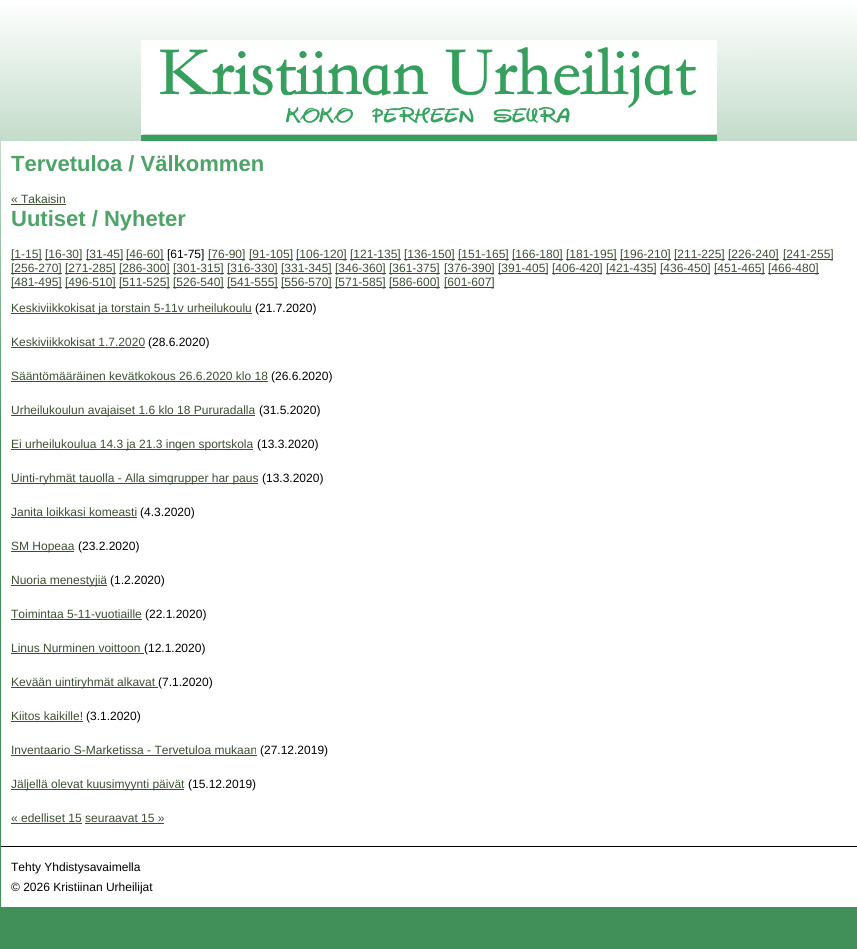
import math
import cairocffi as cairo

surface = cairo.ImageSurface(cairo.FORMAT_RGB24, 857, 949)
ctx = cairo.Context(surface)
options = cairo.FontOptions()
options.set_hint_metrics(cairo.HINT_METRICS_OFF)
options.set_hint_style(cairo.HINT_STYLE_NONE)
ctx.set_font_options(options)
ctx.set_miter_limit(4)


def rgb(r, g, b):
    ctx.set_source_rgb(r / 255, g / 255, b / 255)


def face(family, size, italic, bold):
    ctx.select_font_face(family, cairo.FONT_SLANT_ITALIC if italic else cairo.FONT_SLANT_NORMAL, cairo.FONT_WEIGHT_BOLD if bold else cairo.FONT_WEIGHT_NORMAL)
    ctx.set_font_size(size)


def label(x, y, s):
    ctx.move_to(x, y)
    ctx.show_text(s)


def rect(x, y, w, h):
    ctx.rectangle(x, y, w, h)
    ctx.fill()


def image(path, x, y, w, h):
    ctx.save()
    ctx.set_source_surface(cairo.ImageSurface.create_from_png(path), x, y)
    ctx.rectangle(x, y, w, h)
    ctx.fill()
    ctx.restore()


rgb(255, 255, 255)
ctx.paint()
gradient = cairo.LinearGradient(428, 0, 429, 949)
gradient.add_color_stop_rgba(0, 1, 1, 1, 1)
gradient.add_color_stop_rgba(0.47, 0.255, 0.565, 0.353, 1)
gradient.add_color_stop_rgba(1, 0.255, 0.565, 0.353, 1)
ctx.set_source(gradient)
rect(0, 5, 857, 944)
image('image0.png', 141, 40, 576, 101)
rgb(255, 255, 255)
rect(1, 141, 856, 705)
face('Liberation Sans', 22, 0, 1)
rgb(77, 163, 104)
label(11, 171, 'Tervetuloa / Välkommen')
face('Liberation Sans', 12, 0, 0)
rgb(59, 80, 50)
label(11, 203, '« Takaisin')
rect(11, 204, 55, 1)
face('Liberation Sans', 22, 0, 1)
rgb(77, 163, 104)
label(11, 226, 'Uutiset / Nyheter')
rgb(59, 80, 50)
rect(11, 259, 31, 1)
face('Liberation Sans', 12, 0, 0)
label(11, 258, '[1-15]')
rect(45, 259, 37, 1)
label(45, 258, '[16-30]')
rect(86, 259, 37, 1)
label(86, 258, '[31-45]')
rect(126, 259, 38, 1)
label(126, 258, '[46-60]')
rgb(0, 0, 0)
label(167, 258, '[61-75]')
rgb(59, 80, 50)
rect(208, 259, 37, 1)
label(208, 258, '[76-90]')
rect(249, 259, 44, 1)
label(249, 258, '[91-105]')
rect(296, 259, 51, 1)
label(296, 258, '[106-120]')
rect(350, 259, 51, 1)
label(350, 258, '[121-135]')
rect(404, 259, 51, 1)
label(404, 258, '[136-150]')
rect(458, 259, 51, 1)
label(458, 258, '[151-165]')
rect(512, 259, 51, 1)
label(512, 258, '[166-180]')
rect(566, 259, 51, 1)
label(566, 258, '[181-195]')
rect(620, 259, 51, 1)
label(620, 258, '[196-210]')
rect(674, 259, 51, 1)
label(674, 258, '[211-225]')
rect(728, 259, 51, 1)
label(728, 258, '[226-240]')
rect(783, 259, 50, 1)
label(783, 258, '[241-255]')
rect(11, 273, 51, 1)
label(11, 272, '[256-270]')
rect(65, 273, 51, 1)
label(65, 272, '[271-285]')
rect(119, 273, 51, 1)
label(119, 272, '[286-300]')
rect(173, 273, 51, 1)
label(173, 272, '[301-315]')
rect(227, 273, 51, 1)
label(227, 272, '[316-330]')
rect(281, 273, 51, 1)
label(281, 272, '[331-345]')
rect(335, 273, 51, 1)
label(335, 272, '[346-360]')
rect(389, 273, 51, 1)
label(389, 272, '[361-375]')
rect(444, 273, 50, 1)
label(444, 272, '[376-390]')
rect(498, 273, 50, 1)
label(498, 272, '[391-405]')
rect(552, 273, 50, 1)
label(552, 272, '[406-420]')
rect(606, 273, 50, 1)
label(606, 272, '[421-435]')
rect(660, 273, 50, 1)
label(660, 272, '[436-450]')
rect(714, 273, 51, 1)
label(714, 272, '[451-465]')
rect(768, 273, 51, 1)
label(768, 272, '[466-480]')
rect(11, 287, 51, 1)
label(11, 286, '[481-495]')
rect(65, 287, 51, 1)
label(65, 286, '[496-510]')
rect(119, 287, 51, 1)
label(119, 286, '[511-525]')
rect(173, 287, 51, 1)
label(173, 286, '[526-540]')
rect(227, 287, 51, 1)
label(227, 286, '[541-555]')
rect(281, 287, 51, 1)
label(281, 286, '[556-570]')
rect(335, 287, 51, 1)
label(335, 286, '[571-585]')
rect(389, 287, 51, 1)
label(389, 286, '[586-600]')
rect(444, 287, 50, 1)
label(444, 286, '[601-607]')
rect(11, 313, 241, 1)
label(11, 312, 'Keskiviikkokisat ja torstain 5-11v urheilukoulu')
rgb(0, 0, 0)
label(255, 312, '(21.7.2020)')
rgb(59, 80, 50)
label(11, 346, 'Keskiviikkokisat 1.7.2020')
rect(11, 347, 134, 1)
rgb(0, 0, 0)
label(148, 346, '(28.6.2020)')
rgb(59, 80, 50)
label(11, 380, 'Sääntömääräinen kevätkokous 26.6.2020 klo 18')
rect(11, 381, 257, 1)
rgb(0, 0, 0)
label(271, 380, '(26.6.2020)')
rgb(59, 80, 50)
rect(11, 415, 244, 1)
label(11, 414, 'Urheilukoulun avajaiset 1.6 klo 18 Pururadalla')
rgb(0, 0, 0)
label(259, 414, '(31.5.2020)')
rgb(59, 80, 50)
rect(11, 449, 242, 1)
label(11, 448, 'Ei urheilukoulua 14.3 ja 21.3 ingen sportskola')
rgb(0, 0, 0)
label(257, 448, '(13.3.2020)')
rgb(59, 80, 50)
rect(11, 483, 247, 1)
label(11, 482, 'Uinti-ryhmät tauolla - Alla simgrupper har paus')
rgb(0, 0, 0)
label(262, 482, '(13.3.2020)')
rgb(59, 80, 50)
label(11, 516, 'Janita loikkasi komeasti')
rect(11, 517, 126, 1)
rgb(0, 0, 0)
label(140, 516, '(4.3.2020)')
rgb(59, 80, 50)
rect(11, 551, 63, 1)
label(11, 550, 'SM Hopeaa')
rgb(0, 0, 0)
label(78, 550, '(23.2.2020)')
rgb(59, 80, 50)
rect(11, 585, 96, 1)
label(11, 584, 'Nuoria menestyjiä')
rgb(0, 0, 0)
label(110, 584, '(1.2.2020)')
rgb(59, 80, 50)
label(11, 618, 'Toimintaa 5-11-vuotiaille')
rect(11, 619, 131, 1)
rgb(0, 0, 0)
label(145, 618, '(22.1.2020)')
rgb(59, 80, 50)
label(11, 652, 'Linus Nurminen voittoon')
rect(11, 653, 133, 1)
rgb(0, 0, 0)
label(144, 652, '(12.1.2020)')
rgb(59, 80, 50)
rect(11, 687, 147, 1)
label(11, 686, 'Kevään uintiryhmät alkavat')
rgb(0, 0, 0)
label(158, 686, '(7.1.2020)')
rgb(59, 80, 50)
label(11, 720, 'Kiitos kaikille!')
rect(11, 721, 72, 1)
rgb(0, 0, 0)
label(86, 720, '(3.1.2020)')
rgb(59, 80, 50)
label(11, 754, 'Inventaario S-Marketissa - Tervetuloa mukaan')
rect(11, 755, 246, 1)
rgb(0, 0, 0)
label(260, 754, '(27.12.2019)')
rgb(59, 80, 50)
rect(11, 789, 173, 1)
label(11, 788, 'Jäljellä olevat kuusimyynti päivät')
rgb(0, 0, 0)
label(188, 788, '(15.12.2019)')
rgb(59, 80, 50)
label(11, 822, '« edelliset 15 seuraavat 15 »')
rect(11, 823, 71, 1)
rect(85, 823, 79, 1)
rgb(255, 255, 255)
rect(1, 847, 856, 60)
rgb(0, 0, 0)
rect(1, 846, 856, 1)
label(11, 871, 'Tehty Yhdistysavaimella')
label(11, 891, '© 2026 Kristiinan Urheilijat')
surface.write_to_png('render.png')
